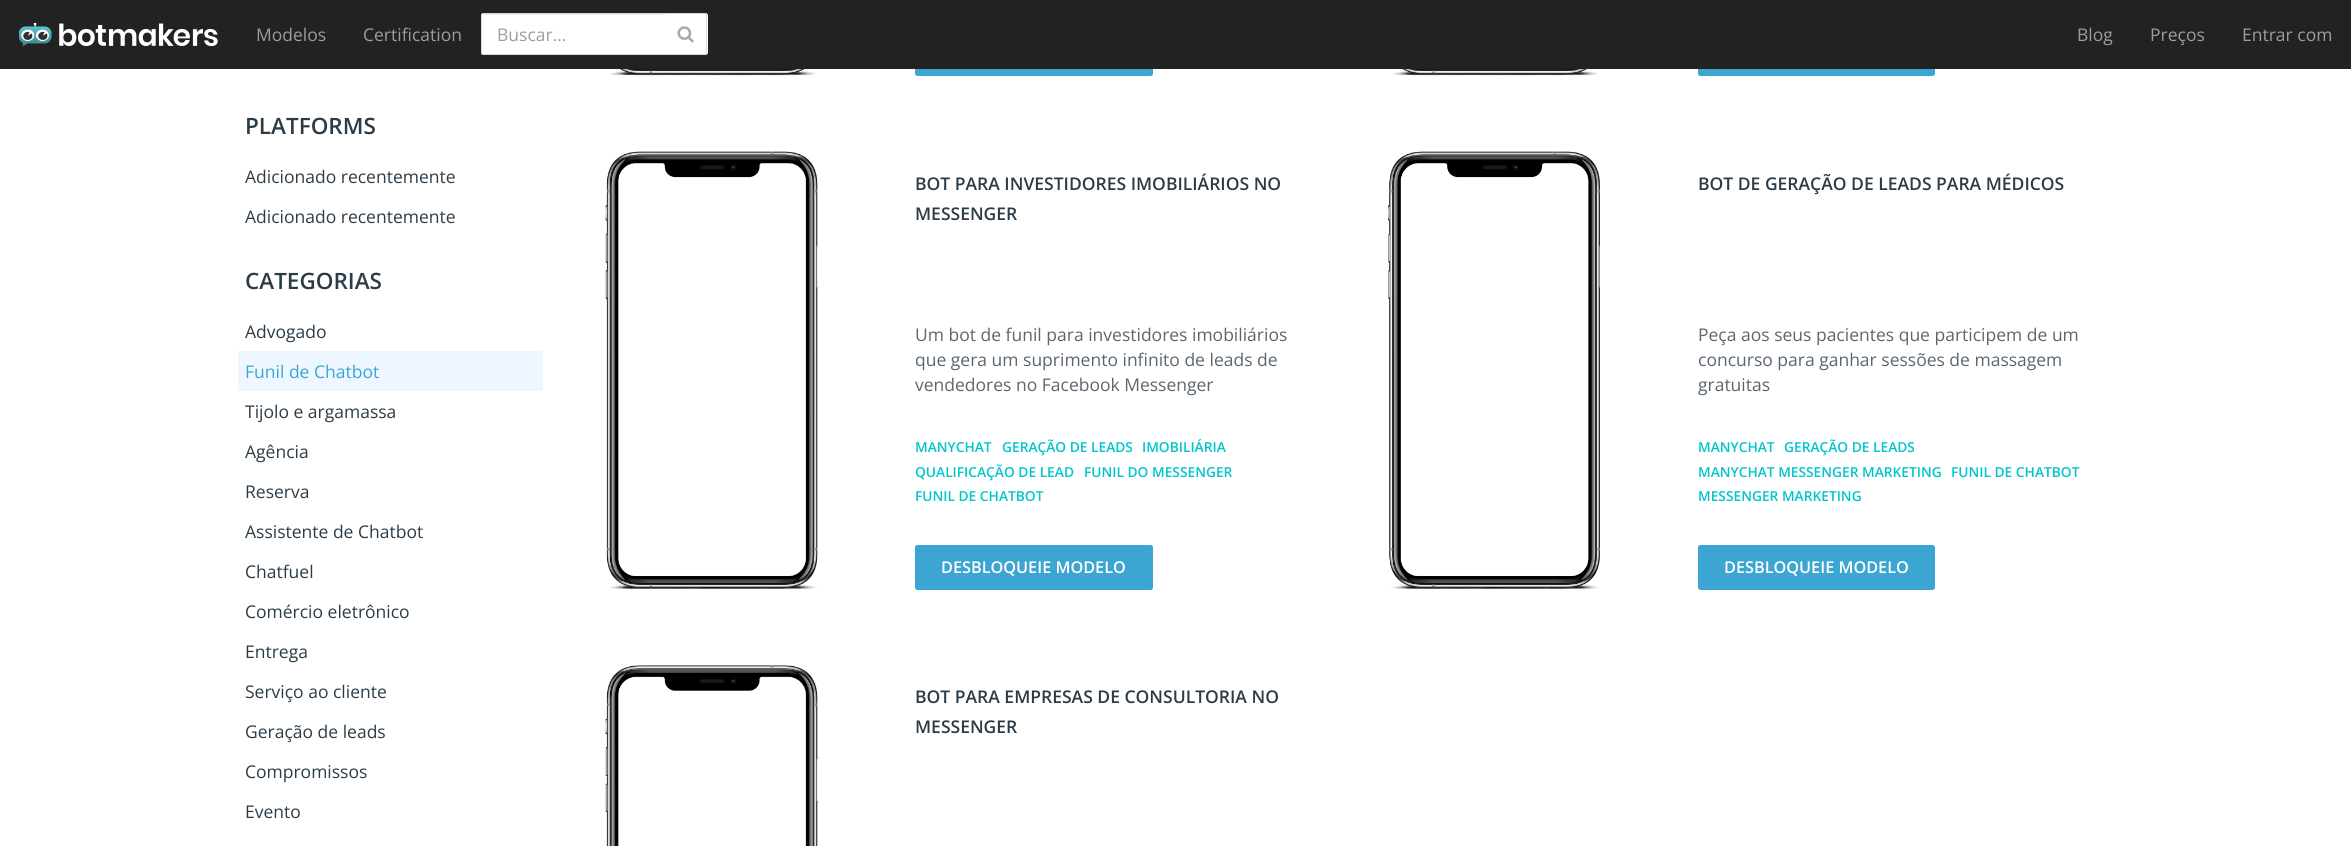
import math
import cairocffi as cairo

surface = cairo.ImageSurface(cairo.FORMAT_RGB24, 2351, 846)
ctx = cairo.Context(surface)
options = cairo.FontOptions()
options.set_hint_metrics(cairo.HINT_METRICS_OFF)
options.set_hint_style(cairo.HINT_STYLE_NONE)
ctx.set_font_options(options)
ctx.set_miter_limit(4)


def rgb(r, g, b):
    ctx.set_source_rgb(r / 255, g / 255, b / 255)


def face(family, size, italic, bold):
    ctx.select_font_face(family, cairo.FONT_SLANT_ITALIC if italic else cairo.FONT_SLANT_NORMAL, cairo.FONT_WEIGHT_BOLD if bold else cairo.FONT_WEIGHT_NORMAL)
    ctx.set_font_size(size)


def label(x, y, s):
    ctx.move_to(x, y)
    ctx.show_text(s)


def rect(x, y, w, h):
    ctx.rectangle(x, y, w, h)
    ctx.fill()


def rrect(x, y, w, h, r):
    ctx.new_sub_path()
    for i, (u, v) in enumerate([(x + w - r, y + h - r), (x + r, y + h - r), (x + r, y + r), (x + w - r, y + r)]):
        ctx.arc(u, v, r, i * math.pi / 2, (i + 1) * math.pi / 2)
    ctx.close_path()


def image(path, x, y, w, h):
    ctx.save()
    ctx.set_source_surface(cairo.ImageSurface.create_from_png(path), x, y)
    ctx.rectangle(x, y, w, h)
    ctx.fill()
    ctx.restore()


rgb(255, 255, 255)
ctx.paint()
rgb(60, 165, 209)
rrect(915, 31, 238, 45, 2.5)
ctx.fill()
rrect(1698, 31, 237, 45, 2.5)
ctx.fill()
rgb(34, 34, 34)
rect(0, 0, 2351, 69)
image('image0.png', 19, 23, 33, 23)
image('image1.png', 59, 23, 159, 23)
face('Open Sans', 17.5, 0, 0)
rgb(157, 157, 157)
label(256, 41, 'Modelos')
label(363, 41, 'Certification')
rgb(255, 255, 255)
rrect(481, 13, 187, 42, 2.5)
ctx.fill()
rgb(236, 236, 236)
ctx.new_path()
ctx.move_to(484, 15)
ctx.line_to(665, 15)
ctx.line_to(666, 16)
ctx.line_to(666, 14)
ctx.line_to(484, 14)
ctx.line_to(483, 15)
ctx.close_path()
ctx.fill()
rrect(481.5, 13.5, 186, 41, 2)
rgb(208, 218, 221)
ctx.set_line_width(1)
ctx.stroke()
rgb(157, 157, 157)
label(497, 41, 'Buscar...')
rgb(255, 255, 255)
rrect(665, 13, 43, 42, 2.5)
ctx.fill()
rgb(208, 218, 221)
rect(666, 13, 40, 1)
rect(706, 14, 1, 40)
rect(666, 54, 40, 1)
image('image2.png', 677, 26, 17, 17)
rgb(157, 157, 157)
label(2077, 41, 'Blog')
label(2150, 41, 'Preços')
label(2242, 41, 'Entrar com')
face('Open Sans SemiBold', 22.5, 0, 0)
rgb(44, 60, 71)
label(245, 134, 'PLATFORMS')
face('Open Sans', 17.5, 0, 0)
label(245, 183, 'Adicionado recentemente')
label(245, 223, 'Adicionado recentemente')
face('Open Sans SemiBold', 22.5, 0, 0)
label(245, 289, 'CATEGORIAS')
face('Open Sans', 17.5, 0, 0)
label(245, 338, 'Advogado')
rgb(238, 247, 255)
rect(238, 351, 305, 40)
rgb(60, 165, 209)
label(245, 378, 'Funil de Chatbot')
rgb(44, 60, 71)
label(245, 418, 'Tijolo e argamassa')
label(245, 458, 'Agência')
label(245, 498, 'Reserva')
label(245, 538, 'Assistente de Chatbot')
label(245, 578, 'Chatfuel')
label(245, 618, 'Comércio eletrônico')
label(245, 658, 'Entrega')
label(245, 698, 'Serviço ao cliente')
label(245, 738, 'Geração de leads')
label(245, 778, 'Compromissos')
label(245, 818, 'Evento')
image('image3.png', 610, 69, 206, 7)
image('image4.png', 1392, 69, 206, 7)
image('image5.png', 605, 151, 213, 439)
face('Open Sans SemiBold', 17.5, 0, 0)
label(915, 190, 'BOT PARA INVESTIDORES IMOBILIÁRIOS NO')
label(915, 220, 'MESSENGER')
face('Open Sans', 17.5, 0, 0)
rgb(90, 102, 113)
label(915, 341, 'Um bot de funil para investidores imobiliários')
label(915, 366, 'que gera um suprimento infinito de leads de')
label(915, 391, 'vendedores no Facebook Messenger')
face('Open Sans SemiBold', 13.75, 0, 0)
rgb(0, 197, 205)
label(915, 452, 'MANYCHAT')
label(1002, 452, 'GERAÇÃO DE LEADS')
label(1142, 452, 'IMOBILIÁRIA')
label(915, 477, 'QUALIFICAÇÃO DE LEAD')
label(1084, 477, 'FUNIL DO MESSENGER')
label(915, 501, 'FUNIL DE CHATBOT')
rgb(60, 165, 209)
rrect(915, 545, 238, 45, 2.5)
ctx.fill()
face('Open Sans SemiBold', 16.25, 0, 0)
rgb(255, 255, 255)
label(941, 573, 'DESBLOQUEIE MODELO')
image('image6.png', 1388, 151, 212, 439)
face('Open Sans SemiBold', 17.5, 0, 0)
rgb(44, 60, 71)
label(1698, 190, 'BOT DE GERAÇÃO DE LEADS PARA MÉDICOS')
face('Open Sans', 17.5, 0, 0)
rgb(90, 102, 113)
label(1698, 341, 'Peça aos seus pacientes que participem de um')
label(1698, 366, 'concurso para ganhar sessões de massagem')
label(1698, 391, 'gratuitas')
face('Open Sans SemiBold', 13.75, 0, 0)
rgb(0, 197, 205)
label(1698, 452, 'MANYCHAT')
label(1784, 452, 'GERAÇÃO DE LEADS')
label(1698, 477, 'MANYCHAT MESSENGER MARKETING')
label(1951, 477, 'FUNIL DE CHATBOT')
label(1698, 501, 'MESSENGER MARKETING')
rgb(60, 165, 209)
rrect(1698, 545, 237, 45, 2.5)
ctx.fill()
face('Open Sans SemiBold', 16.25, 0, 0)
rgb(255, 255, 255)
label(1724, 573, 'DESBLOQUEIE MODELO')
image('image7.png', 605, 665, 213, 181)
face('Open Sans SemiBold', 17.5, 0, 0)
rgb(44, 60, 71)
label(915, 703, 'BOT PARA EMPRESAS DE CONSULTORIA NO')
label(915, 733, 'MESSENGER')
surface.write_to_png('render.png')
